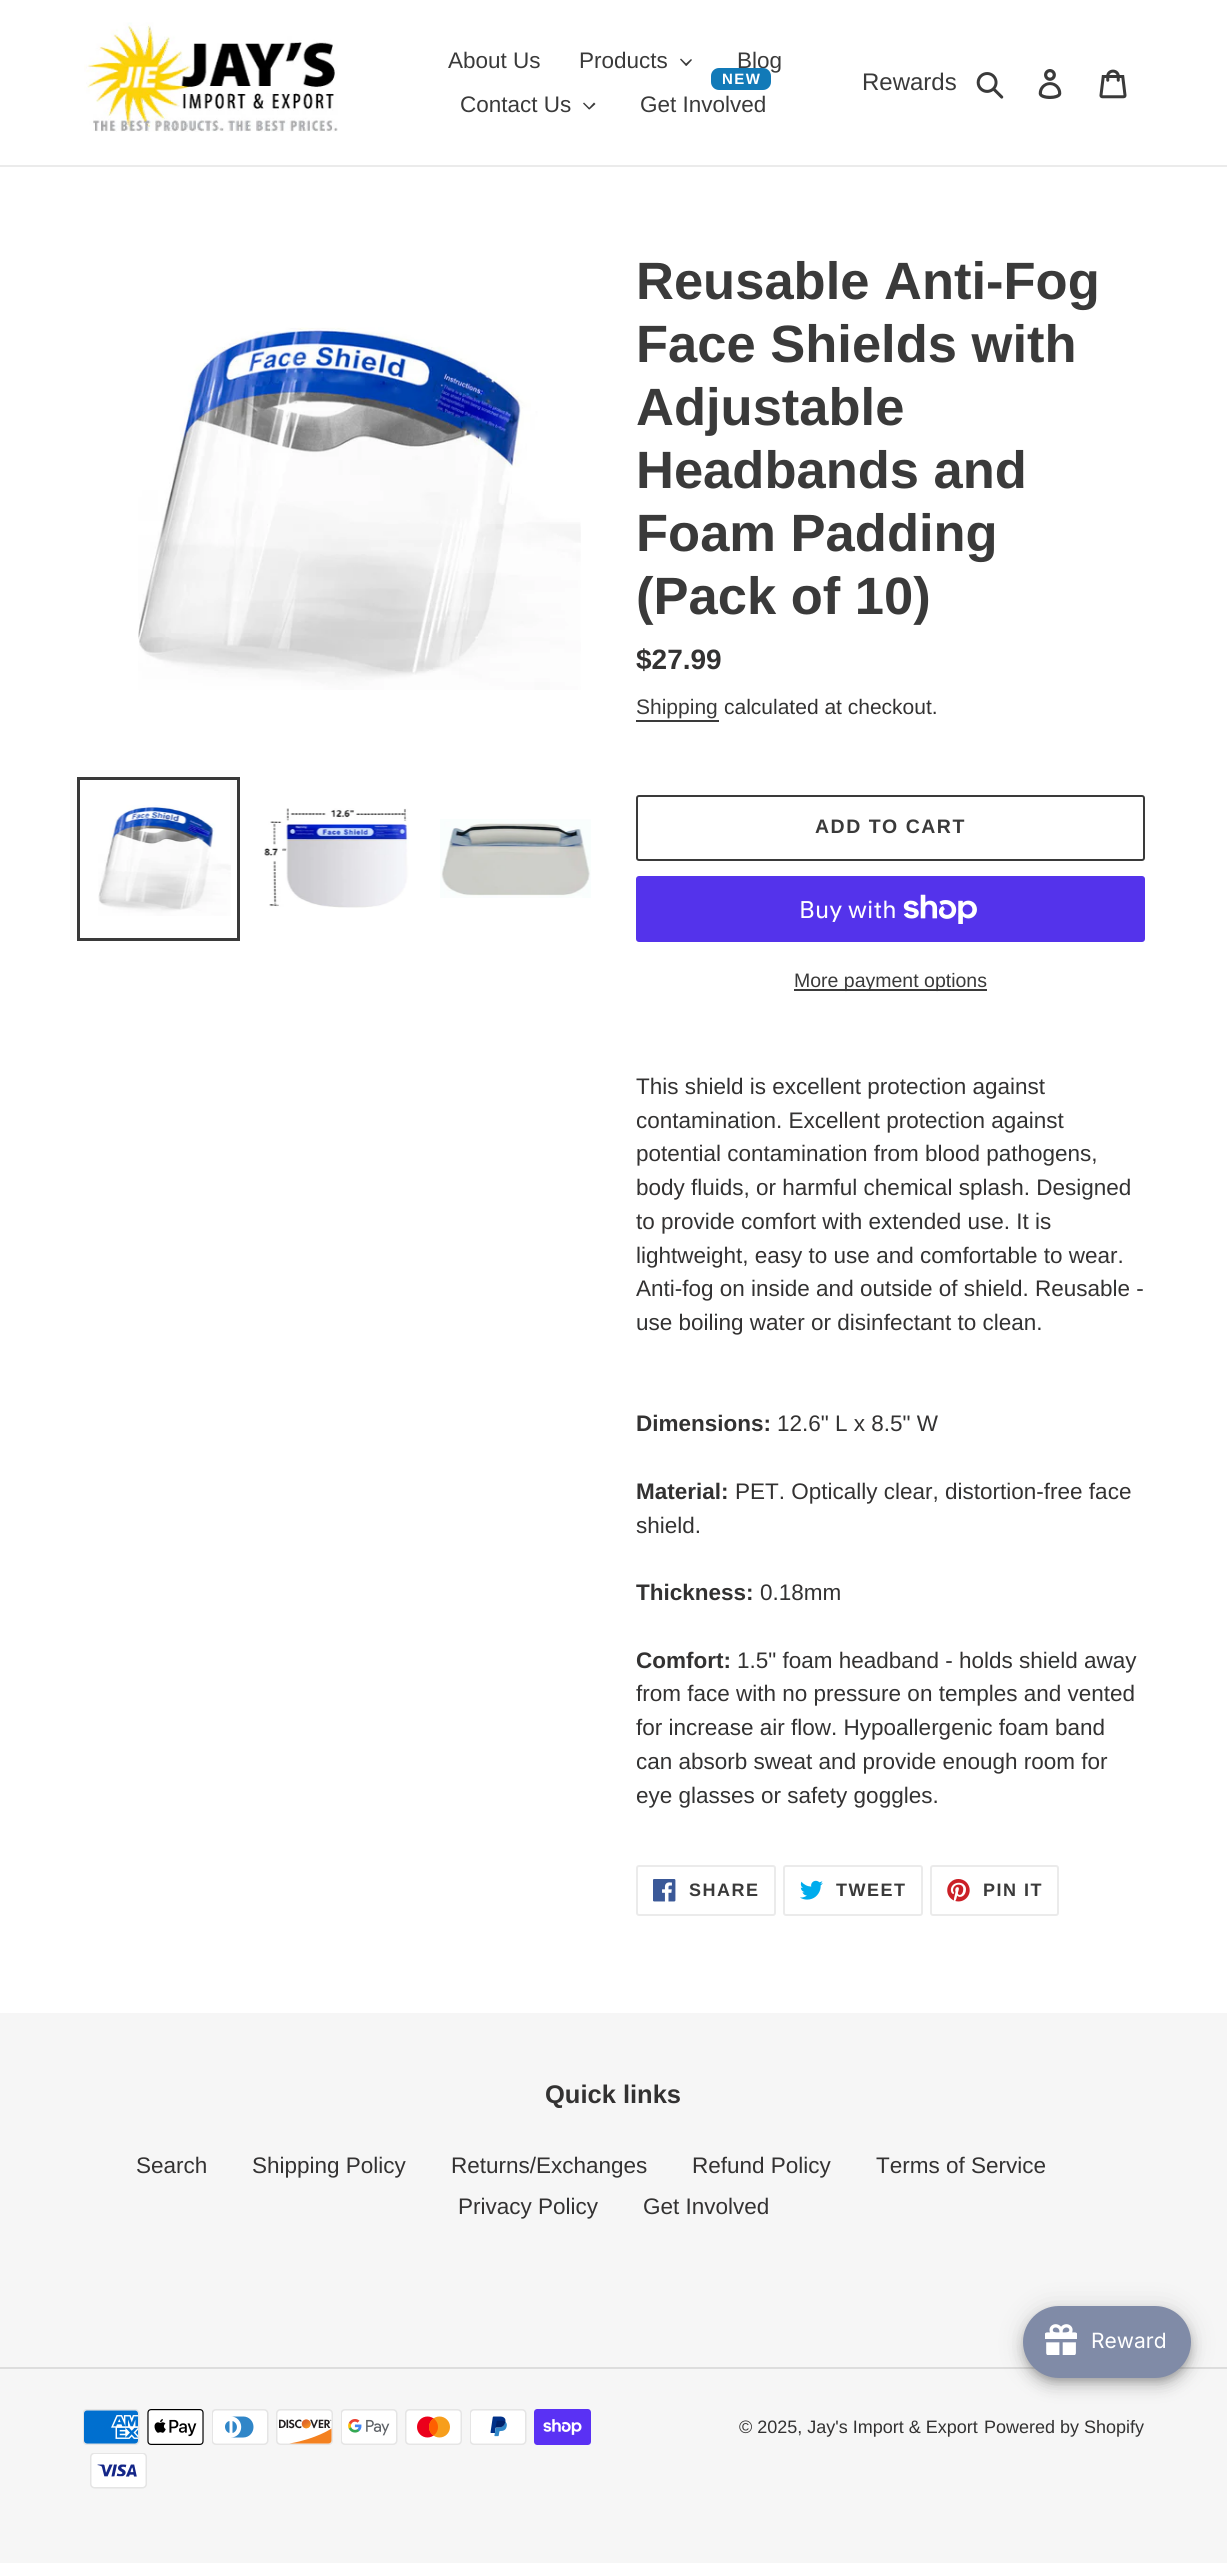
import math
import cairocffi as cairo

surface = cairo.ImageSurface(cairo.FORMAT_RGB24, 1227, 2563)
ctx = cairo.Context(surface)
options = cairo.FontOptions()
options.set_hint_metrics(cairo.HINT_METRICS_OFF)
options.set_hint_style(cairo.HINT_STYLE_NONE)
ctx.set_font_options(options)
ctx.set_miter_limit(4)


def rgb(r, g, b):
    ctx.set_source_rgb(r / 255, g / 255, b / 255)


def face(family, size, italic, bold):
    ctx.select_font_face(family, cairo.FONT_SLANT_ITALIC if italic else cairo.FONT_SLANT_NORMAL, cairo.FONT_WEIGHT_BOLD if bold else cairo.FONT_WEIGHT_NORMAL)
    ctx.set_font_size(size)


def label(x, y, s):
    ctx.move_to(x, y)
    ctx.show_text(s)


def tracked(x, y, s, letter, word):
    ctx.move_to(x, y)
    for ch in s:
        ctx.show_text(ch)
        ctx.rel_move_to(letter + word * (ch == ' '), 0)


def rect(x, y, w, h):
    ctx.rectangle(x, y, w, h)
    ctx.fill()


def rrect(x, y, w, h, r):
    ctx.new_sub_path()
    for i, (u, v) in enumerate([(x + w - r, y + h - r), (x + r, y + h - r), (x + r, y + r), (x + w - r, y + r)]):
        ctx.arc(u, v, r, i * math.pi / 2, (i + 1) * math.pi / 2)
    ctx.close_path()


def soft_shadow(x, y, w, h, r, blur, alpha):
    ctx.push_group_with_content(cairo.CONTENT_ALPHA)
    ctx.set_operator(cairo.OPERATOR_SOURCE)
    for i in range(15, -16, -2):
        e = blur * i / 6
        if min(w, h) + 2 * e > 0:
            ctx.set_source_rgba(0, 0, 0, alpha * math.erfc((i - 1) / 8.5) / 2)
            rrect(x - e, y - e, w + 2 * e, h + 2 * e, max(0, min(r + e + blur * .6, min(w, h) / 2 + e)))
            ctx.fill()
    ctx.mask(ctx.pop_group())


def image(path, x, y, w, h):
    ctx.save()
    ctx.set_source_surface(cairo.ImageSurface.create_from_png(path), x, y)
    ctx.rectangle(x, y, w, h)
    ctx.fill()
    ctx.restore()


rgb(255, 255, 255)
ctx.paint()
rgb(235, 235, 235)
rect(0, 165, 1227, 2)
image('image0.png', 84, 22, 254, 110)
face('Liberation Sans', 22.5, 0, 0)
rgb(58, 58, 58)
label(448, 68, 'About Us')
label(579, 68, 'Products')
ctx.new_path()
ctx.move_to(691, 59)
ctx.line_to(692, 60)
ctx.line_to(686.5, 66)
ctx.line_to(685, 64.5)
ctx.close_path()
ctx.fill()
ctx.new_path()
ctx.move_to(681, 58.5)
ctx.line_to(687, 64.5)
ctx.line_to(686, 66)
ctx.line_to(680, 59.5)
ctx.close_path()
ctx.fill()
label(737, 68, 'Blog')
label(460, 112, 'Contact Us')
ctx.new_path()
ctx.move_to(594, 102.5)
ctx.line_to(595.5, 104)
ctx.line_to(589.5, 109.5)
ctx.line_to(588.5, 108.5)
ctx.close_path()
ctx.fill()
ctx.new_path()
ctx.move_to(584, 102.5)
ctx.line_to(590, 108.5)
ctx.line_to(589, 109.5)
ctx.line_to(583, 103.5)
ctx.close_path()
ctx.fill()
rgb(18, 122, 184)
rrect(711, 68, 60, 22, 8)
ctx.fill()
face('Liberation Sans', 15, 0, 1)
rgb(255, 255, 255)
tracked(722, 84, 'NEW', 1.5, 0)
face('Liberation Sans', 22.5, 0, 0)
rgb(58, 58, 58)
label(640, 112, 'Get Involved')
face('Liberation Sans', 24, 0, 0)
label(862, 90, 'Rewards')
image('image1.png', 976, 72, 28, 27)
image('image2.png', 1038, 69, 24, 30)
image('image3.png', 1099, 69, 28, 30)
image('image4.png', 138, 327, 443, 363)
ctx.rectangle(78.5, 778.5, 160, 161)
ctx.set_line_width(3)
ctx.stroke()
image('image5.png', 98, 805, 133, 111)
image('image6.png', 264, 808, 145, 100)
image('image7.png', 440, 819, 151, 79)
face('Liberation Sans', 52.5, 0, 1)
label(636, 299, 'Reusable Anti-Fog')
label(636, 362, 'Face Shields with')
label(636, 425, 'Adjustable')
label(636, 488, 'Headbands and')
label(636, 551, 'Foam Padding')
label(636, 614, '(Pack of 10)')
face('Liberation Sans', 28, 0, 1)
rgb(51, 50, 50)
label(636, 669, '$27.99')
face('Liberation Sans', 21, 0, 0)
rgb(58, 58, 58)
label(636, 714, 'Shipping')
rect(636, 720, 83, 2)
rgb(51, 50, 50)
label(724, 714, 'calculated at checkout.')
rrect(637, 796, 507, 64, 2)
rgb(58, 58, 58)
ctx.set_line_width(2)
ctx.stroke()
face('Liberation Sans', 19.5, 0, 1)
tracked(815, 833, 'ADD TO CART', 1.5, 0)
rgb(84, 51, 235)
rrect(636, 876, 509, 66, 3)
ctx.fill()
face('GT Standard', 24, 0, 0)
rgb(255, 255, 255)
label(799, 918, 'Buy with')
image('image8.png', 903, 894, 74, 30)
rgb(58, 58, 58)
rect(794, 989, 193, 2)
face('Liberation Sans', 19.5, 0, 0)
label(794, 987, 'More payment options')
face('Liberation Sans', 22.5, 0, 0)
rgb(51, 50, 50)
label(636, 1094, 'This shield is excellent protection against')
label(636, 1128, 'contamination. Excellent protection against')
label(636, 1161, 'potential contamination from blood pathogens,')
label(636, 1195, 'body fluids, or harmful chemical splash. Designed')
label(636, 1229, 'to provide comfort with extended use. It is')
label(636, 1263, 'lightweight, easy to use and comfortable to wear.')
label(636, 1296, 'Anti-fog on inside and outside of shield. Reusable -')
label(636, 1330, 'use boiling water or disinfectant to clean.')
face('Liberation Sans', 22.5, 0, 1)
label(636, 1431, 'Dimensions:')
face('Liberation Sans', 22.5, 0, 0)
label(777, 1431, '12.6" L x 8.5" W')
face('Liberation Sans', 22.5, 0, 1)
label(636, 1499, 'Material:')
face('Liberation Sans', 22.5, 0, 0)
label(735, 1499, 'PET. Optically clear, distortion-free face')
label(636, 1533, 'shield.')
face('Liberation Sans', 22.5, 0, 1)
label(636, 1600, 'Thickness:')
face('Liberation Sans', 22.5, 0, 0)
label(760, 1600, '0.18mm')
face('Liberation Sans', 22.5, 0, 1)
label(636, 1668, 'Comfort:')
face('Liberation Sans', 22.5, 0, 0)
label(737, 1668, '1.5" foam headband - holds shield away')
label(636, 1701, 'from face with no pressure on temples and vented')
label(636, 1735, 'for increase air flow. Hypoallergenic foam band')
label(636, 1769, 'can absorb sweat and provide enough room for')
label(636, 1803, 'eye glasses or safety goggles.')
rrect(637, 1866, 138, 49, 2)
rgb(235, 235, 235)
ctx.stroke()
image('image9.png', 653, 1879, 23, 23)
face('Liberation Sans', 18, 0, 1)
rgb(58, 58, 58)
tracked(689, 1896, 'SHARE', 1.5, 0)
rrect(784, 1866, 138, 49, 2)
rgb(235, 235, 235)
ctx.stroke()
image('image10.png', 800, 1880, 23, 20)
rgb(58, 58, 58)
tracked(836, 1896, 'TWEET', 1.5, 0)
rrect(931, 1866, 127, 49, 2)
rgb(235, 235, 235)
ctx.stroke()
image('image11.png', 947, 1879, 23, 23)
rgb(58, 58, 58)
tracked(983, 1896, 'PIN IT', 1.5, 0)
rgb(246, 246, 246)
rect(0, 2013, 1227, 550)
face('Liberation Sans', 25.5, 0, 1)
rgb(51, 50, 50)
label(545, 2103, 'Quick links')
face('Liberation Sans', 22.5, 0, 0)
label(136, 2173, 'Search')
label(252, 2173, 'Shipping Policy')
label(451, 2173, 'Returns/Exchanges')
label(692, 2173, 'Refund Policy')
label(876, 2173, 'Terms of Service')
label(458, 2214, 'Privacy Policy')
label(643, 2214, 'Get Involved')
rgb(221, 221, 221)
rect(0, 2367, 1227, 2)
image('image12.png', 83, 2409, 57, 36)
image('image13.png', 147, 2409, 57, 36)
image('image14.png', 212, 2409, 57, 36)
image('image15.png', 276, 2409, 57, 36)
image('image16.png', 341, 2409, 57, 36)
image('image17.png', 405, 2409, 57, 36)
image('image18.png', 470, 2409, 57, 36)
image('image19.png', 534, 2409, 57, 36)
image('image20.png', 90, 2453, 57, 36)
face('Liberation Sans', 18, 0, 0)
rgb(51, 50, 50)
label(739, 2433, '© 2025, Jay\'s Import & Export')
label(984, 2433, 'Powered by Shopify')
rgb(0, 0, 0)
soft_shadow(1023, 2307, 168, 72, 36, 13.5, 0.12)
soft_shadow(1023, 2315, 168, 72, 36, 7.5, 0.14)
soft_shadow(1025, 2312, 165, 69, 34.5, 4, 0.2)
rgb(128, 139, 167)
rrect(1023, 2306, 168, 72, 36)
ctx.fill()
image('image21.png', 1045, 2324, 32, 31)
face('Inter', 21, 0, 0)
rgb(255, 255, 255)
label(1091, 2348, 'Reward')
surface.write_to_png('render.png')
